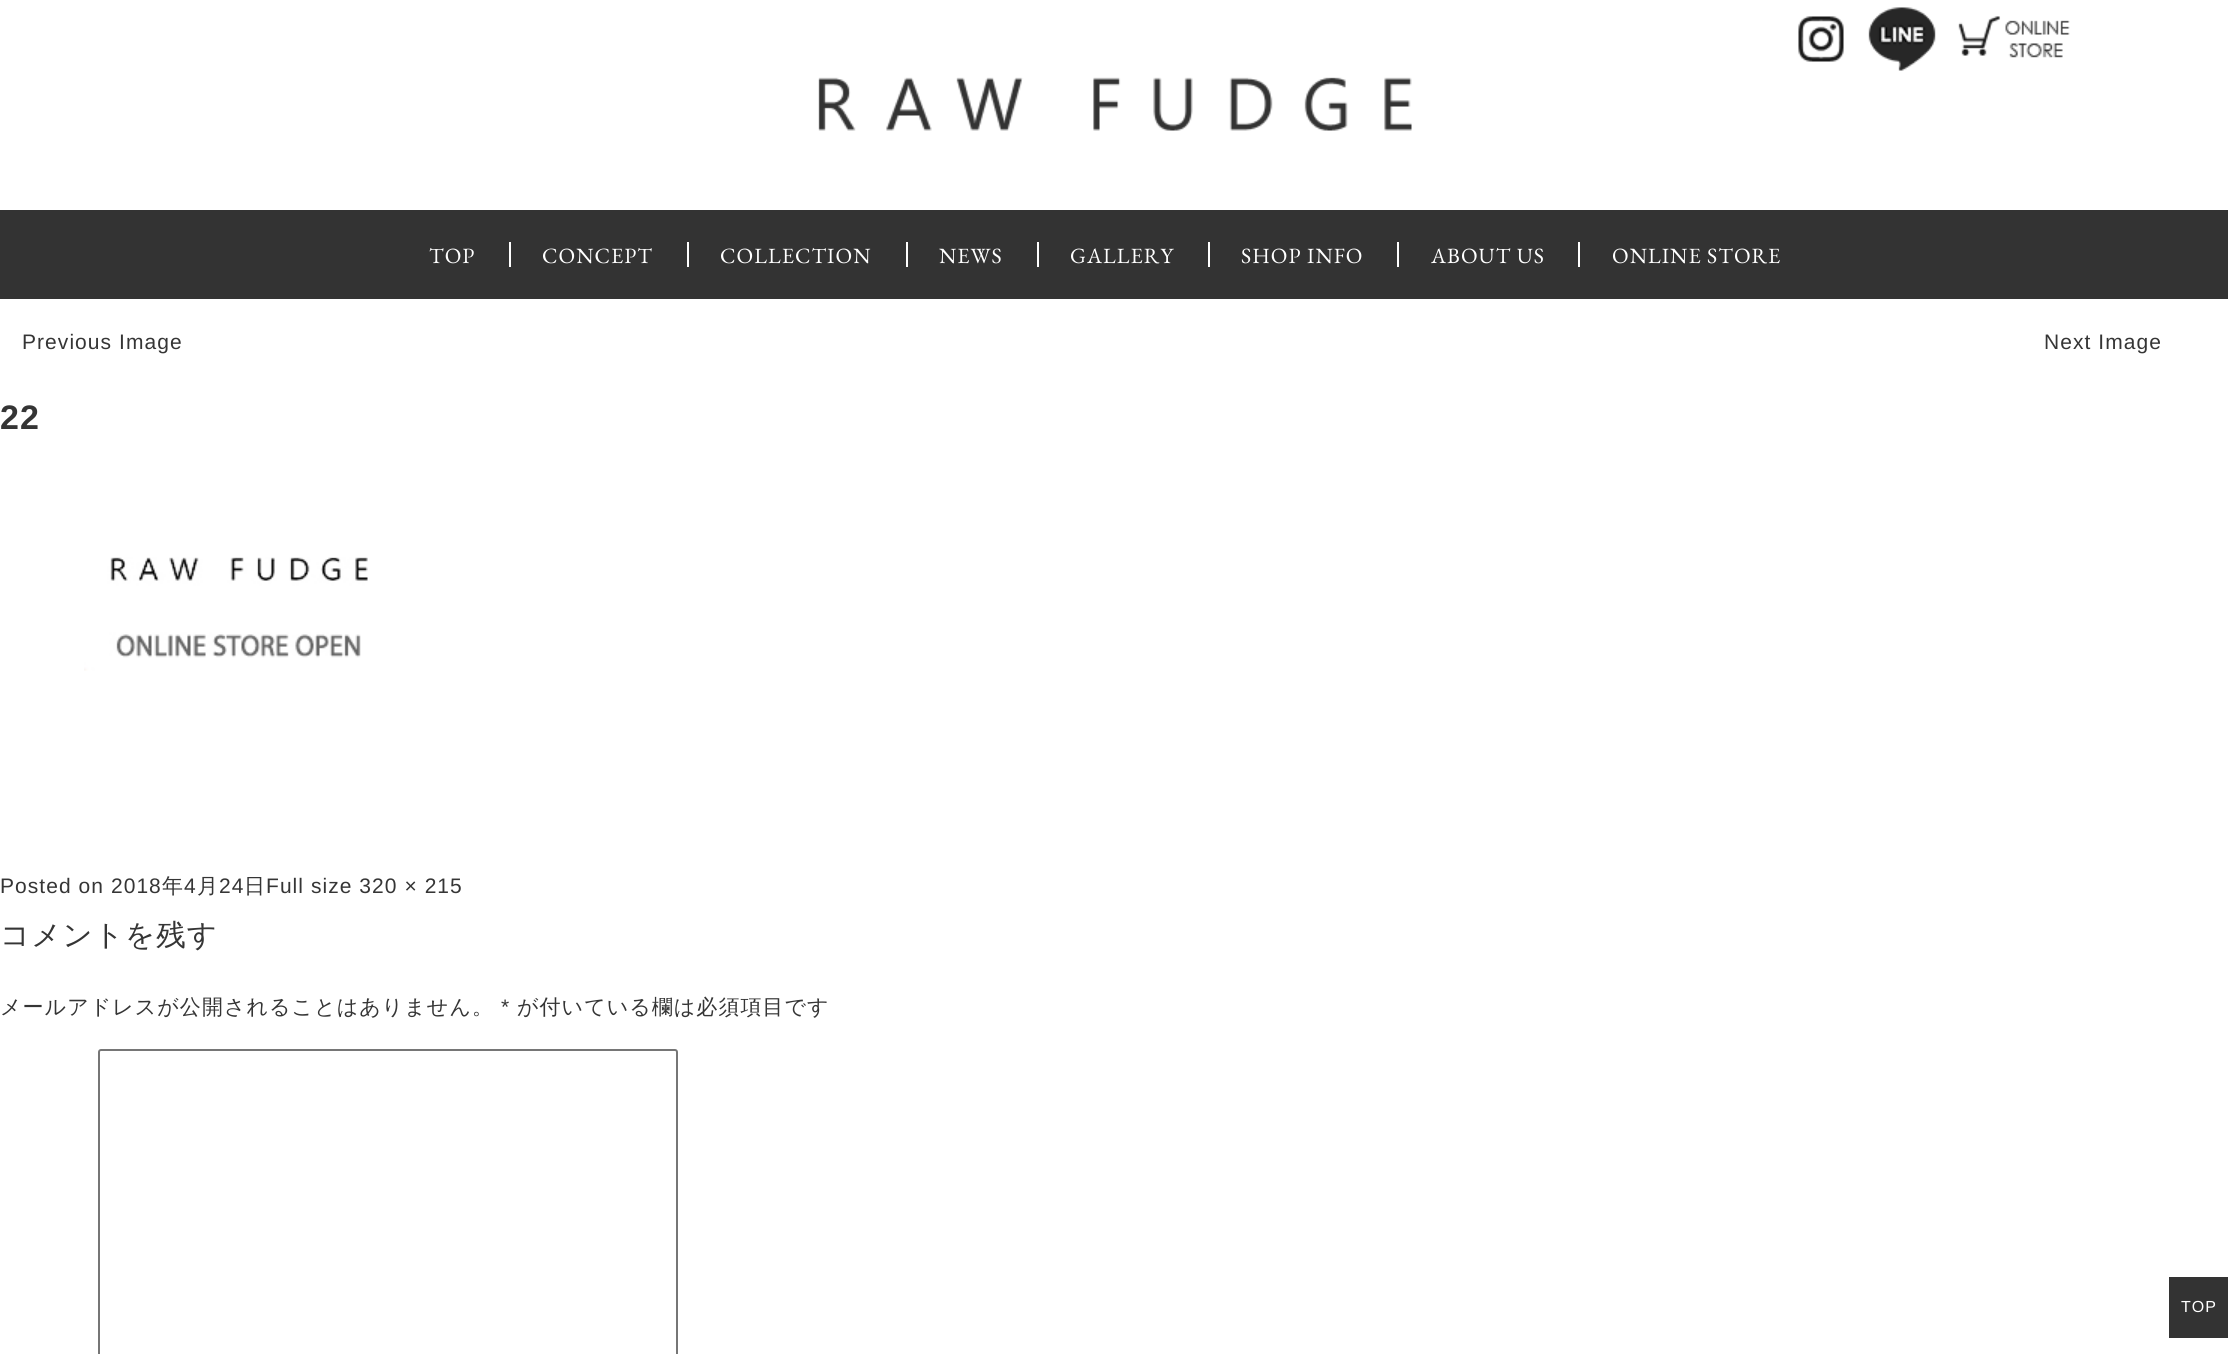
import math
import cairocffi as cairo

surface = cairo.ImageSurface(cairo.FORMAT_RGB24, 2228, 1354)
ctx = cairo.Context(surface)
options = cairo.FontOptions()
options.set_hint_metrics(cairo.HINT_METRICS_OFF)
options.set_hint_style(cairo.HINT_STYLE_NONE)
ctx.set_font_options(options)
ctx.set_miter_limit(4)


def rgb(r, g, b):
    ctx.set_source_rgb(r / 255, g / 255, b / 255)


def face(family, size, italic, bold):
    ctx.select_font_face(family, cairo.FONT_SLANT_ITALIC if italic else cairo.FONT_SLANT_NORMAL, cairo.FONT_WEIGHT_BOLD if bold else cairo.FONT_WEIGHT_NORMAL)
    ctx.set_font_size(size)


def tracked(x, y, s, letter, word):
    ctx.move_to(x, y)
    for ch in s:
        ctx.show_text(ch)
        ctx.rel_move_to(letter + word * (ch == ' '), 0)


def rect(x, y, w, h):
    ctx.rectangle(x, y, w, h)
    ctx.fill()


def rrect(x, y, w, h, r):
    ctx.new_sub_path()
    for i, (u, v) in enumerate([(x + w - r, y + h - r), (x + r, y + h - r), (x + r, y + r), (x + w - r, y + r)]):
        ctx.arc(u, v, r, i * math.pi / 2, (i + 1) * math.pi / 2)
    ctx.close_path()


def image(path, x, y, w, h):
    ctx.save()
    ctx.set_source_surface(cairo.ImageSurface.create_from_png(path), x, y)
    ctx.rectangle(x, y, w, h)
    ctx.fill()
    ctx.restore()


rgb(255, 255, 255)
ctx.paint()
image('image0.png', 1798, 16, 46, 46)
image('image1.png', 1868, 7, 68, 64)
image('image2.png', 1958, 16, 112, 42)
image('image3.png', 818, 77, 594, 54)
rgb(51, 51, 51)
rect(0, 210, 2228, 89)
rgb(255, 255, 255)
rect(509, 242, 2, 25)
face('EB Garamond', 21.75, 0, 0)
tracked(429, 263, 'TOP', 1.05, 0)
rect(687, 242, 2, 25)
tracked(542, 263, 'CONCEPT', 1.05, 0)
rect(906, 242, 2, 25)
tracked(720, 263, 'COLLECTION', 1.05, 0)
rect(1037, 242, 2, 25)
tracked(939, 263, 'NEWS', 1.05, 0)
rect(1208, 242, 2, 25)
tracked(1070, 263, 'GALLERY', 1.05, 0)
rect(1397, 242, 2, 25)
tracked(1241, 263, 'SHOP INFO', 1.05, 0)
rect(1578, 242, 2, 25)
tracked(1431, 263, 'ABOUT US', 1.05, 0)
tracked(1612, 263, 'ONLINE STORE', 1.05, 0)
face('Liberation Sans', 21, 0, 0)
rgb(53, 53, 53)
tracked(22, 349, 'Previous Image', 1.05, 0)
tracked(2044, 349, 'Next Image', 1.05, 0)
face('Liberation Sans', 34, 0, 1)
tracked(0, 429, '22', 1.05, 0)
image('image4.png', 84, 557, 284, 114)
face('Liberation Sans', 21, 0, 0)
tracked(0, 893, 'Posted on 2018', 1.05, 0)
face('WenQuanYi Zen Hei Medium', 21, 0, 0)
tracked(162, 893, '年', 1.05, 0)
face('Liberation Sans', 21, 0, 0)
tracked(184, 893, '4', 1.05, 0)
face('WenQuanYi Zen Hei Medium', 21, 0, 0)
tracked(197, 893, '月', 1.05, 0)
face('Liberation Sans', 21, 0, 0)
tracked(219, 893, '24', 1.05, 0)
face('WenQuanYi Zen Hei Medium', 21, 0, 0)
tracked(244, 893, '日', 1.05, 0)
face('Liberation Sans', 21, 0, 0)
tracked(266, 893, 'Full size 320 × 215', 1.05, 0)
face('WenQuanYi Zen Hei Medium', 29.5, 0, 0)
tracked(0, 945, 'コメントを残す', 1.05, 0)
face('WenQuanYi Zen Hei Medium', 21, 0, 0)
tracked(0, 1014, 'メールアドレスが公開されることはありません。', 1.05, 0)
face('Liberation Sans', 21, 0, 0)
tracked(501, 1014, '*', 1.05, 0)
face('WenQuanYi Zen Hei Medium', 21, 0, 0)
tracked(517, 1014, 'が付いている欄は必須項目です', 1.05, 0)
rrect(99, 1050, 578, 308, 2)
rgb(118, 118, 118)
ctx.stroke()
rgb(51, 51, 51)
rect(2169, 1277, 59, 61)
face('Liberation Sans', 16, 0, 0)
rgb(255, 255, 255)
tracked(2181, 1312, 'TOP', 1.05, 0)
surface.write_to_png('render.png')
